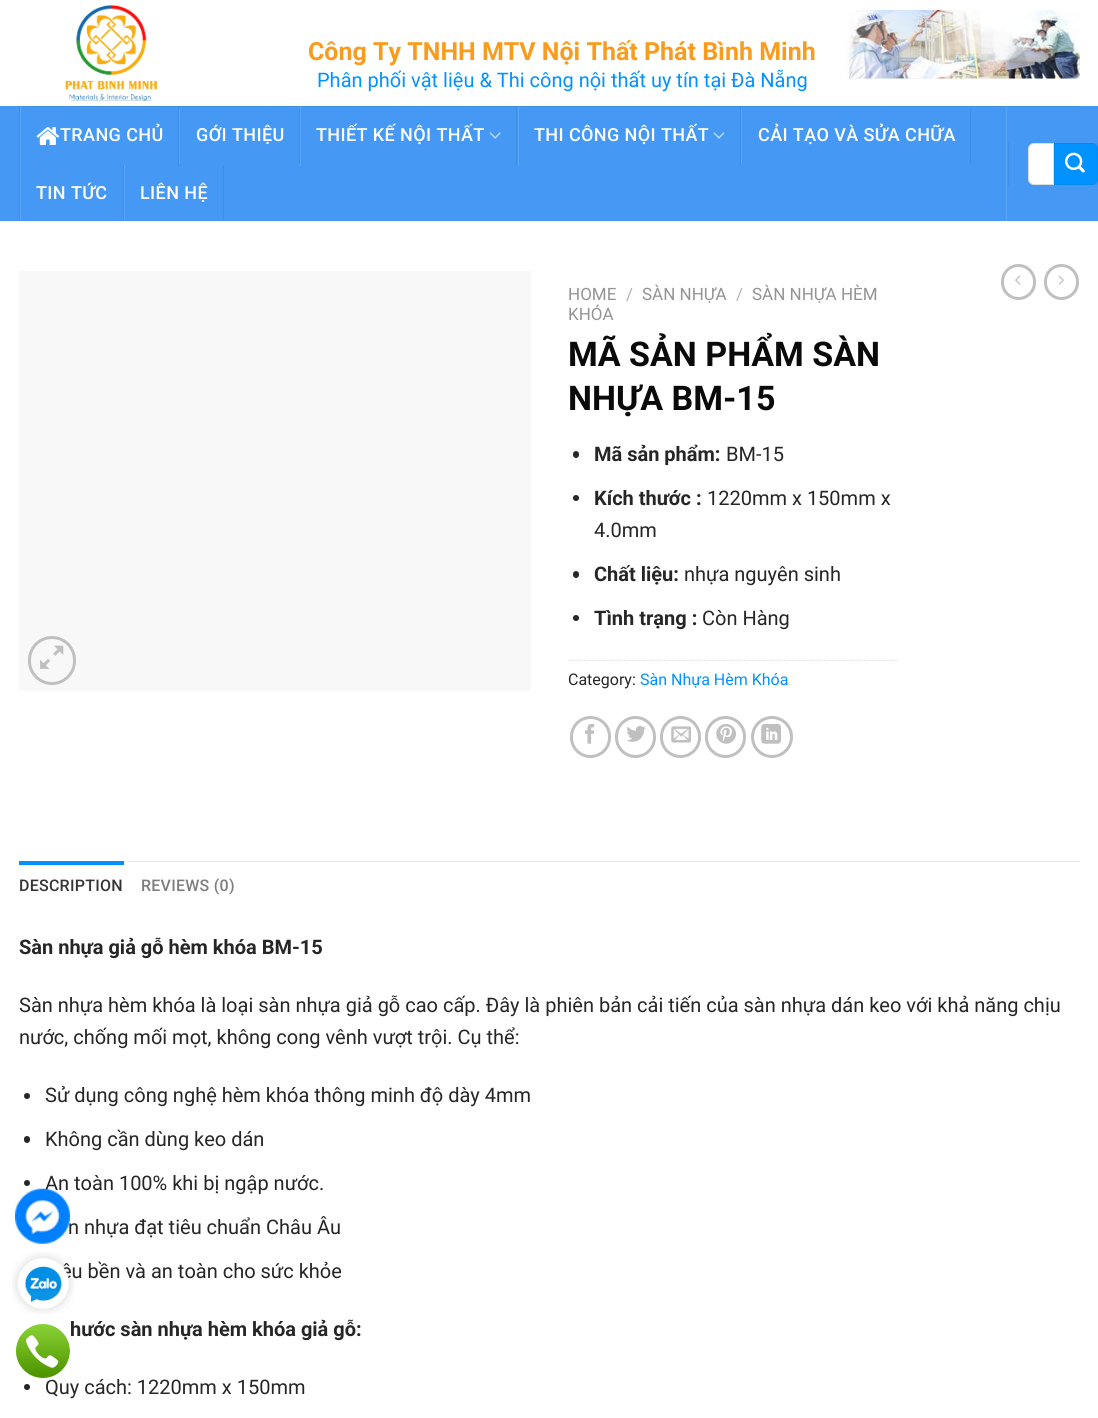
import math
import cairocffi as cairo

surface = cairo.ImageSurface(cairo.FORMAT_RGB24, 1098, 1418)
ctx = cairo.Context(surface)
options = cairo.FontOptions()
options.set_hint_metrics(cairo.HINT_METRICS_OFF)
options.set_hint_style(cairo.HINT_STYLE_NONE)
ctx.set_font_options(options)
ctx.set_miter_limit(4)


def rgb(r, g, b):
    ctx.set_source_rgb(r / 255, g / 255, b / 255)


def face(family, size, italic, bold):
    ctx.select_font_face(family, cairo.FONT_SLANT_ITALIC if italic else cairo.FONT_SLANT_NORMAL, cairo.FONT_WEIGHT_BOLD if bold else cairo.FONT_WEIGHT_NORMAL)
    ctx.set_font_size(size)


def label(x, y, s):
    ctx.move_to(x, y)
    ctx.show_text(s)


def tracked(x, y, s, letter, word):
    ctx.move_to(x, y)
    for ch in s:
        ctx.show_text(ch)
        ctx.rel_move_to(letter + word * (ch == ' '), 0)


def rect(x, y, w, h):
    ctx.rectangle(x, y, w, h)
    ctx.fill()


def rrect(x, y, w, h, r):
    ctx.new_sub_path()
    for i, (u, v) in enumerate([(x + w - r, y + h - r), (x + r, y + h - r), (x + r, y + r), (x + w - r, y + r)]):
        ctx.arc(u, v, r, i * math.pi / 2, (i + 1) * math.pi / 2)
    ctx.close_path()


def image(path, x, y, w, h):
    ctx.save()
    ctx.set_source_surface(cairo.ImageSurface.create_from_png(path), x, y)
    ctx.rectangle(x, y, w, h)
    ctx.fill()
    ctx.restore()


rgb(255, 255, 255)
ctx.paint()
image('image0.png', 65, 5, 92, 97)
face('Roboto', 25, 0, 1)
rgb(249, 155, 28)
label(308, 60, 'Công Ty TNHH MTV Nội Thất Phát Bình Minh')
face('Roboto', 20, 0, 0)
rgb(0, 146, 255)
label(317, 87, 'Phân phối vật liệu & Thi công nội thất uy tín tại Đà Nẵng')
image('image1.png', 845, 10, 235, 69)
rgb(69, 153, 245)
rect(0, 106, 1098, 115)
rgb(66, 142, 224)
rect(19, 106, 1061, 1)
rgb(90, 166, 249)
rect(1006, 106, 1, 115)
rgb(85, 153, 228)
rect(1006, 106, 1, 1)
rgb(61, 143, 232)
rect(19, 106, 1, 115)
rgb(59, 133, 213)
rect(19, 106, 1, 1)
rgb(61, 143, 232)
rect(178, 106, 1, 60)
rgb(59, 133, 213)
rect(178, 106, 1, 1)
rgb(90, 166, 249)
rect(20, 106, 1, 115)
rgb(85, 153, 228)
rect(20, 106, 1, 1)
image('image2.png', 36, 127, 24, 18)
face('Roboto Medium', 18, 0, 0)
rgb(255, 255, 255)
tracked(60, 141, 'TRANG CHỦ', 0.4, 0)
rgb(61, 143, 232)
rect(299, 109, 1, 55)
rgb(90, 166, 249)
rect(179, 109, 1, 55)
rgb(255, 255, 255)
tracked(196, 141, 'GỚI THIỆU', 0.4, 0)
rgb(61, 143, 232)
rect(516, 106, 1, 60)
rgb(59, 133, 213)
rect(516, 106, 1, 1)
rgb(90, 166, 249)
rect(300, 106, 1, 60)
rgb(85, 153, 228)
rect(300, 106, 1, 1)
rgb(255, 255, 255)
tracked(316, 141, 'THIẾT KẾ NỘI THẤT', 0.4, 0)
image('image3.png', 489, 132, 12, 7)
rgb(61, 143, 232)
rect(740, 106, 1, 60)
rgb(59, 133, 213)
rect(740, 106, 1, 1)
rgb(90, 166, 249)
rect(518, 106, 1, 60)
rgb(85, 153, 228)
rect(518, 106, 1, 1)
rgb(255, 255, 255)
tracked(534, 141, 'THI CÔNG NỘI THẤT', 0.4, 0)
image('image4.png', 713, 132, 12, 7)
rgb(61, 143, 232)
rect(970, 109, 1, 55)
rgb(90, 166, 249)
rect(741, 109, 1, 55)
rgb(255, 255, 255)
tracked(758, 141, 'CẢI TẠO VÀ SỬA CHỮA', 0.4, 0)
rgb(61, 143, 232)
rect(123, 166, 1, 55)
rgb(255, 255, 255)
tracked(36, 199, 'TIN TỨC', 0.4, 0)
rgb(61, 143, 232)
rect(223, 166, 1, 55)
rgb(90, 166, 249)
rect(124, 166, 1, 55)
rgb(255, 255, 255)
tracked(140, 199, 'LIÊN HỆ', 0.4, 0)
rgb(61, 143, 232)
rect(1008, 143, 1, 42)
rgb(255, 255, 255)
ctx.new_path()
ctx.move_to(1034, 143.5)
ctx.line_to(1053.5, 143.5)
ctx.line_to(1053.5, 184.5)
ctx.line_to(1034, 184.5)
ctx.curve_to(1031, 184.5, 1028.5, 182, 1028.5, 179)
ctx.line_to(1028.5, 149)
ctx.curve_to(1028.5, 146, 1031, 143.5, 1034, 143.5)
ctx.close_path()
ctx.fill_preserve()
rgb(221, 221, 221)
ctx.set_line_width(1)
ctx.stroke()
rgb(0, 146, 255)
ctx.new_path()
ctx.move_to(1054, 143)
ctx.line_to(1092, 143)
ctx.curve_to(1095.5, 143, 1098, 145.5, 1098, 149)
ctx.line_to(1098, 179)
ctx.curve_to(1098, 182.5, 1095.5, 185, 1092, 185)
ctx.line_to(1054, 185)
ctx.close_path()
ctx.fill()
ctx.rectangle(1054.5, 143.5, 43, 41)
ctx.set_source_rgba(0, 0, 0, 0.05)
ctx.stroke()
image('image5.png', 1065, 152, 20, 21)
rgb(248, 248, 248)
rect(19, 271, 512, 420)
rrect(29.5, 637.5, 45, 46, 22.5)
rgb(192, 192, 192)
ctx.set_line_width(3)
ctx.stroke()
image('image6.png', 40, 645, 24, 24)
face('Roboto', 17, 0, 0)
rgb(148, 148, 148)
label(568, 300, 'HOME')
rgb(178, 178, 178)
label(626, 300, '/')
rgb(148, 148, 148)
label(642, 300, 'SÀN NHỰA')
rgb(178, 178, 178)
label(736, 300, '/')
rgb(148, 148, 148)
label(752, 300, 'SÀN NHỰA HÈM')
label(568, 320, 'KHÓA')
face('Roboto', 34, 0, 1)
rgb(10, 10, 10)
label(568, 366, 'MÃ SẢN PHẨM SÀN')
label(568, 410, 'NHỰA BM-15')
rgb(38, 38, 38)
rrect(573, 451, 6, 7, 3)
ctx.fill()
face('Roboto', 20, 0, 1)
label(594, 461, 'Mã sản phẩm:')
face('Roboto', 20, 0, 0)
label(726, 461, 'BM-15')
ctx.new_path()
ctx.arc(576, 498, 3, 0, 2 * math.pi)
ctx.fill()
face('Roboto', 20, 0, 1)
label(594, 505, 'Kích thước :')
face('Roboto', 20, 0, 0)
label(707, 505, '1220mm x 150mm x')
label(594, 537, '4.0mm')
rrect(573, 571, 6, 7, 3)
ctx.fill()
face('Roboto', 20, 0, 1)
label(594, 581, 'Chất liệu:')
face('Roboto', 20, 0, 0)
label(684, 581, 'nhựa nguyên sinh')
ctx.new_path()
ctx.arc(576, 618, 3, 0, 2 * math.pi)
ctx.fill()
face('Roboto', 20, 0, 1)
label(594, 625, 'Tình trạng :')
face('Roboto', 20, 0, 0)
label(702, 625, 'Còn Hàng')
ctx.new_path()
ctx.move_to(569, 660.5)
ctx.line_to(897.5, 660.5)
rgb(221, 221, 221)
ctx.set_line_width(1.2)
ctx.set_dash([1.25, 1.25])
ctx.stroke()
face('Roboto', 16, 0, 0)
rgb(38, 38, 38)
label(568, 685, 'Category:')
rgb(0, 146, 255)
label(640, 685, 'Sàn Nhựa Hèm Khóa')
rrect(571.5, 717.5, 38, 39, 19)
rgb(192, 192, 192)
ctx.set_line_width(3)
ctx.set_dash([])
ctx.stroke()
image('image7.png', 585, 723, 10, 21)
rrect(616.5, 717.5, 38, 39, 19)
ctx.stroke()
image('image8.png', 626, 725, 20, 17)
rrect(661.5, 717.5, 38, 39, 19)
ctx.stroke()
image('image9.png', 671, 726, 20, 17)
rrect(706.5, 717.5, 38, 39, 19)
ctx.stroke()
image('image10.png', 716, 724, 20, 20)
ctx.arc(772, 737, 19.5, 0, 2 * math.pi)
ctx.stroke()
image('image11.png', 761, 723, 20, 21)
rrect(1002.5, 265.5, 32, 33, 16)
ctx.stroke()
image('image12.png', 1015, 275, 6, 10)
rrect(1045.5, 265.5, 32, 33, 16)
ctx.stroke()
image('image13.png', 1058, 275, 6, 10)
rgb(236, 236, 236)
rect(124, 861, 956, 1)
rgb(0, 146, 255)
rect(19, 861, 105, 4)
face('Roboto Medium', 16, 0, 0)
rgb(53, 53, 53)
tracked(19, 891, 'DESCRIPTION', 0.25, 0)
rgb(125, 125, 125)
tracked(141, 891, 'REVIEWS (0)', 0.25, 0)
face('Roboto', 20, 0, 1)
rgb(38, 38, 38)
label(19, 954, 'Sàn nhựa giả gỗ hèm khóa BM-15')
face('Roboto', 20, 0, 0)
label(19, 1012, 'Sàn nhựa hèm khóa là loại sàn nhựa giả gỗ cao cấp. Đây là phiên bản cải tiến của sàn nhựa dán keo với khả năng chịu')
label(19, 1044, 'nước, chống mối mọt, không cong vênh vượt trội. Cụ thể:')
ctx.new_path()
ctx.arc(27, 1096, 3, 0, 2 * math.pi)
ctx.fill()
label(45, 1102, 'Sử dụng công nghệ hèm khóa thông minh độ dày 4mm')
rrect(24, 1136, 6, 7, 3)
ctx.fill()
label(45, 1146, 'Không cần dùng keo dán')
ctx.new_path()
ctx.arc(27, 1183, 3, 0, 2 * math.pi)
ctx.fill()
label(45, 1190, 'An toàn 100% khi bị ngập nước.')
label(68, 1234, 'n nhựa đạt tiêu chuẩn Châu Âu')
label(61, 1278, 'êu bền và an toàn cho sức khỏe')
face('Roboto', 20, 0, 1)
label(70, 1336, 'hước sàn nhựa hèm khóa giả gỗ:')
ctx.new_path()
ctx.arc(27, 1387, 3, 0, 2 * math.pi)
ctx.fill()
face('Roboto', 20, 0, 0)
label(45, 1394, 'Quy cách: 1220mm x 150mm')
image('image14.png', 15, 1188, 55, 56)
image('image15.png', 12, 1252, 62, 62)
image('image16.png', 16, 1324, 54, 54)
ctx.arc(43, 1351, 28.5, 0, 2 * math.pi)
rgb(255, 255, 255)
ctx.stroke()
surface.write_to_png('render.png')
